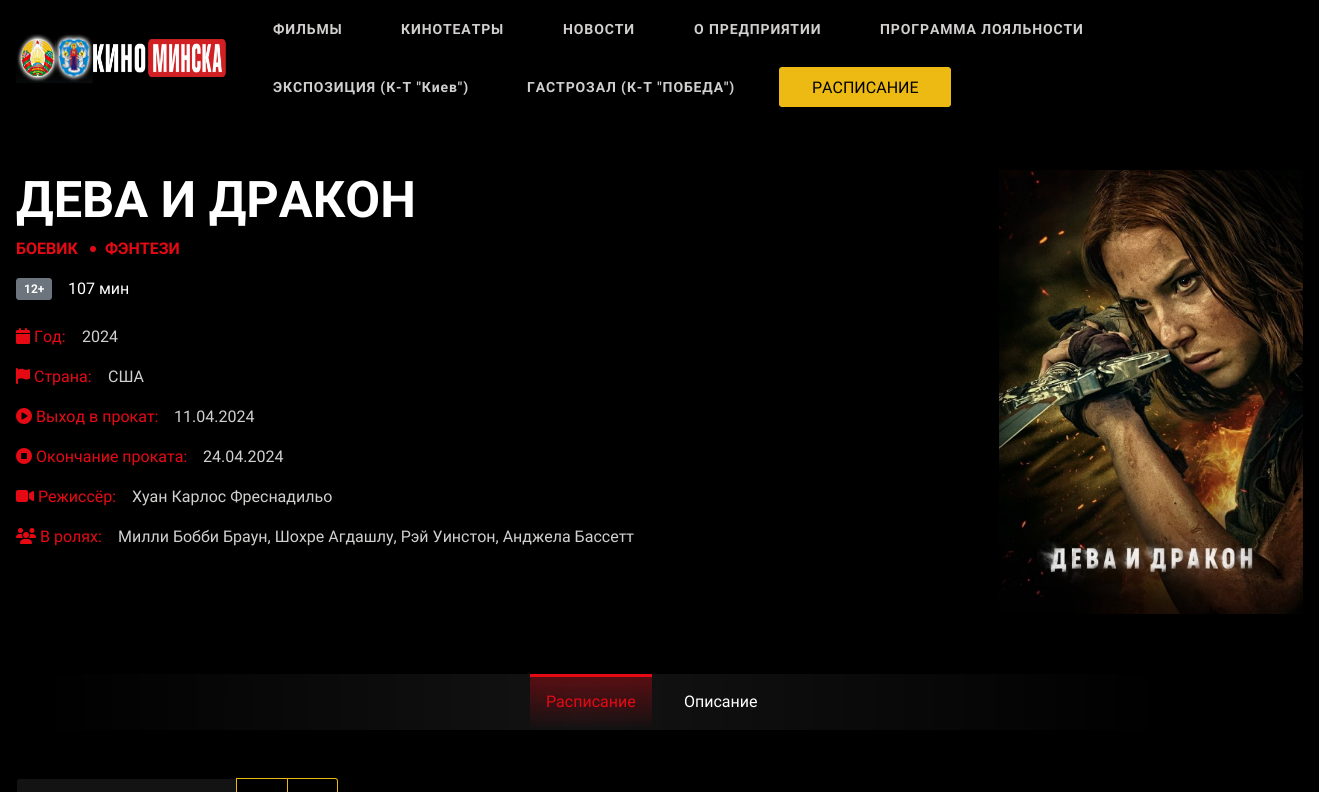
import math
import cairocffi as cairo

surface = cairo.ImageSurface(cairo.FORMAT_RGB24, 1319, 792)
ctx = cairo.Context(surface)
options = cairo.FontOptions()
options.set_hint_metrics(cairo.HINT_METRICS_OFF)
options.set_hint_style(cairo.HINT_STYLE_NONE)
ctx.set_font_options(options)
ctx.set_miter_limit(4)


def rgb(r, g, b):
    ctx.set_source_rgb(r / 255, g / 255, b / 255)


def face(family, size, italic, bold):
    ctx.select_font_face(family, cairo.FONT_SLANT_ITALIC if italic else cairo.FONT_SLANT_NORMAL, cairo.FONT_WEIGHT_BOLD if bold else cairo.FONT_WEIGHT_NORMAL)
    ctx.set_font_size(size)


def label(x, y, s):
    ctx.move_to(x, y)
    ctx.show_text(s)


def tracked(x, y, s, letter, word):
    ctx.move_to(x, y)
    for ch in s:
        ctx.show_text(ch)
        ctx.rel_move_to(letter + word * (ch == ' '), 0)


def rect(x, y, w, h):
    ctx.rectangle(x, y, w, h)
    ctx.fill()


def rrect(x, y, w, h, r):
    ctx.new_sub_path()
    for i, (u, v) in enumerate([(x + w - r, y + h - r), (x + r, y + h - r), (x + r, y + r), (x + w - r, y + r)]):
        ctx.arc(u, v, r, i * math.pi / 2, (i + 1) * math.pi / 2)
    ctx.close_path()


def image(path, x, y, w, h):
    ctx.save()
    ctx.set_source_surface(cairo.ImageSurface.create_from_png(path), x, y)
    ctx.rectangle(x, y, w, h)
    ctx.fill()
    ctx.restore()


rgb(0, 0, 0)
ctx.paint()
image('image0.png', 16, 34, 40, 49)
image('image1.png', 56, 34, 37, 49)
image('image2.png', 93, 39, 133, 38)
face('Roboto', 14, 0, 1)
rgb(209, 208, 207)
tracked(273, 34, 'ФИЛЬМЫ', 0.9, 0)
tracked(401, 34, 'КИНОТЕАТРЫ', 0.9, 0)
tracked(563, 34, 'НОВОСТИ', 0.9, 0)
tracked(694, 34, 'О ПРЕДПРИЯТИИ', 0.9, 0)
tracked(880, 34, 'ПРОГРАММА ЛОЯЛЬНОСТИ', 0.9, 0)
tracked(273, 92, 'ЭКСПОЗИЦИЯ (К-Т "Киев")', 0.9, 0)
tracked(527, 92, 'ГАСТРОЗАЛ (К-Т "ПОБЕДА")', 0.9, 0)
rgb(236, 186, 18)
rrect(779.5, 67.5, 171, 39, 2.5)
ctx.fill_preserve()
ctx.set_line_width(1)
ctx.stroke()
face('Roboto', 16, 0, 0)
rgb(0, 0, 0)
label(812, 93, 'РАСПИСАНИЕ')
face('Roboto', 50.5, 0, 1)
rgb(255, 255, 255)
label(16, 217, 'ДЕВА И ДРАКОН')
face('Roboto', 16, 0, 1)
rgb(229, 9, 20)
label(16, 254, 'БОЕВИК')
ctx.new_path()
ctx.arc(93, 249, 3, 0, 2 * math.pi)
ctx.fill()
label(105, 254, 'ФЭНТЕЗИ')
rgb(108, 117, 125)
rrect(16, 278, 36, 22, 3)
ctx.fill()
face('Roboto', 12, 0, 1)
rgb(255, 255, 255)
label(24, 293, '12+')
face('Roboto', 16, 0, 0)
label(68, 294, '107 мин')
image('image3.png', 16, 328, 14, 16)
rgb(229, 9, 20)
label(34, 342, 'Год:')
rgb(209, 208, 207)
label(82, 342, '2024')
image('image4.png', 16, 368, 14, 16)
rgb(229, 9, 20)
label(34, 382, 'Страна:')
rgb(209, 208, 207)
label(108, 382, 'США')
image('image5.png', 16, 408, 16, 16)
rgb(229, 9, 20)
label(36, 422, 'Выход в прокат:')
rgb(209, 208, 207)
label(174, 422, '11.04.2024')
image('image6.png', 16, 448, 16, 16)
rgb(229, 9, 20)
label(36, 462, 'Окончание проката:')
rgb(209, 208, 207)
label(203, 462, '24.04.2024')
image('image7.png', 16, 490, 18, 12)
rgb(229, 9, 20)
label(38, 502, 'Режиссёр:')
rgb(209, 208, 207)
label(132, 502, 'Хуан Карлос Фреснадильо')
image('image8.png', 16, 528, 20, 16)
rgb(229, 9, 20)
label(40, 542, 'В ролях:')
rgb(209, 208, 207)
label(118, 542, 'Милли Бобби Браун, Шохре Агдашлу, Рэй Уинстон, Анджела Бассетт')
image('image9.png', 999, 170, 304, 444)
gradient = cairo.LinearGradient(16, 701, 1303, 703)
gradient.add_color_stop_rgba(0.02, 0, 0, 0, 1)
gradient.add_color_stop_rgba(0.44, 0.078, 0.075, 0.078, 1)
gradient.add_color_stop_rgba(0.89, 0, 0, 0, 1)
ctx.set_source(gradient)
rrect(16, 674, 1287, 56, 3)
ctx.fill()
rgb(229, 9, 20)
rect(530, 674, 122, 3)
label(546, 707, 'Расписание')
gradient = cairo.LinearGradient(591, 730, 591, 674)
gradient.add_color_stop_rgba(0, 0.898, 0.035, 0.078, 0)
gradient.add_color_stop_rgba(0.85, 0.898, 0.035, 0.078, 0.3)
ctx.set_source(gradient)
rect(530, 677, 122, 50)
rgb(255, 255, 255)
label(684, 707, 'Описание')
rgb(20, 19, 20)
ctx.new_path()
ctx.move_to(19, 779)
ctx.line_to(236, 779)
ctx.line_to(236, 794)
ctx.line_to(19, 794)
ctx.curve_to(18, 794, 17, 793, 17, 792)
ctx.line_to(17, 781)
ctx.curve_to(17, 780, 18, 779, 19, 779)
ctx.close_path()
ctx.fill()
ctx.new_path()
ctx.move_to(19, 778.5)
ctx.line_to(236.5, 778.5)
ctx.line_to(236.5, 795.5)
ctx.line_to(19, 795.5)
ctx.curve_to(17.5, 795.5, 16.5, 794.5, 16.5, 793)
ctx.line_to(16.5, 781)
ctx.curve_to(16.5, 779.5, 17.5, 778.5, 19, 778.5)
ctx.close_path()
rgb(0, 0, 0)
ctx.stroke()
ctx.rectangle(236.5, 778.5, 51, 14)
rgb(236, 186, 18)
ctx.stroke()
ctx.new_path()
ctx.move_to(287.5, 778.5)
ctx.line_to(335, 778.5)
ctx.curve_to(336.5, 778.5, 337.5, 779.5, 337.5, 781)
ctx.line_to(337.5, 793)
ctx.curve_to(337.5, 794.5, 336.5, 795.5, 335, 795.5)
ctx.line_to(287.5, 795.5)
ctx.close_path()
ctx.stroke()
surface.write_to_png('render.png')
